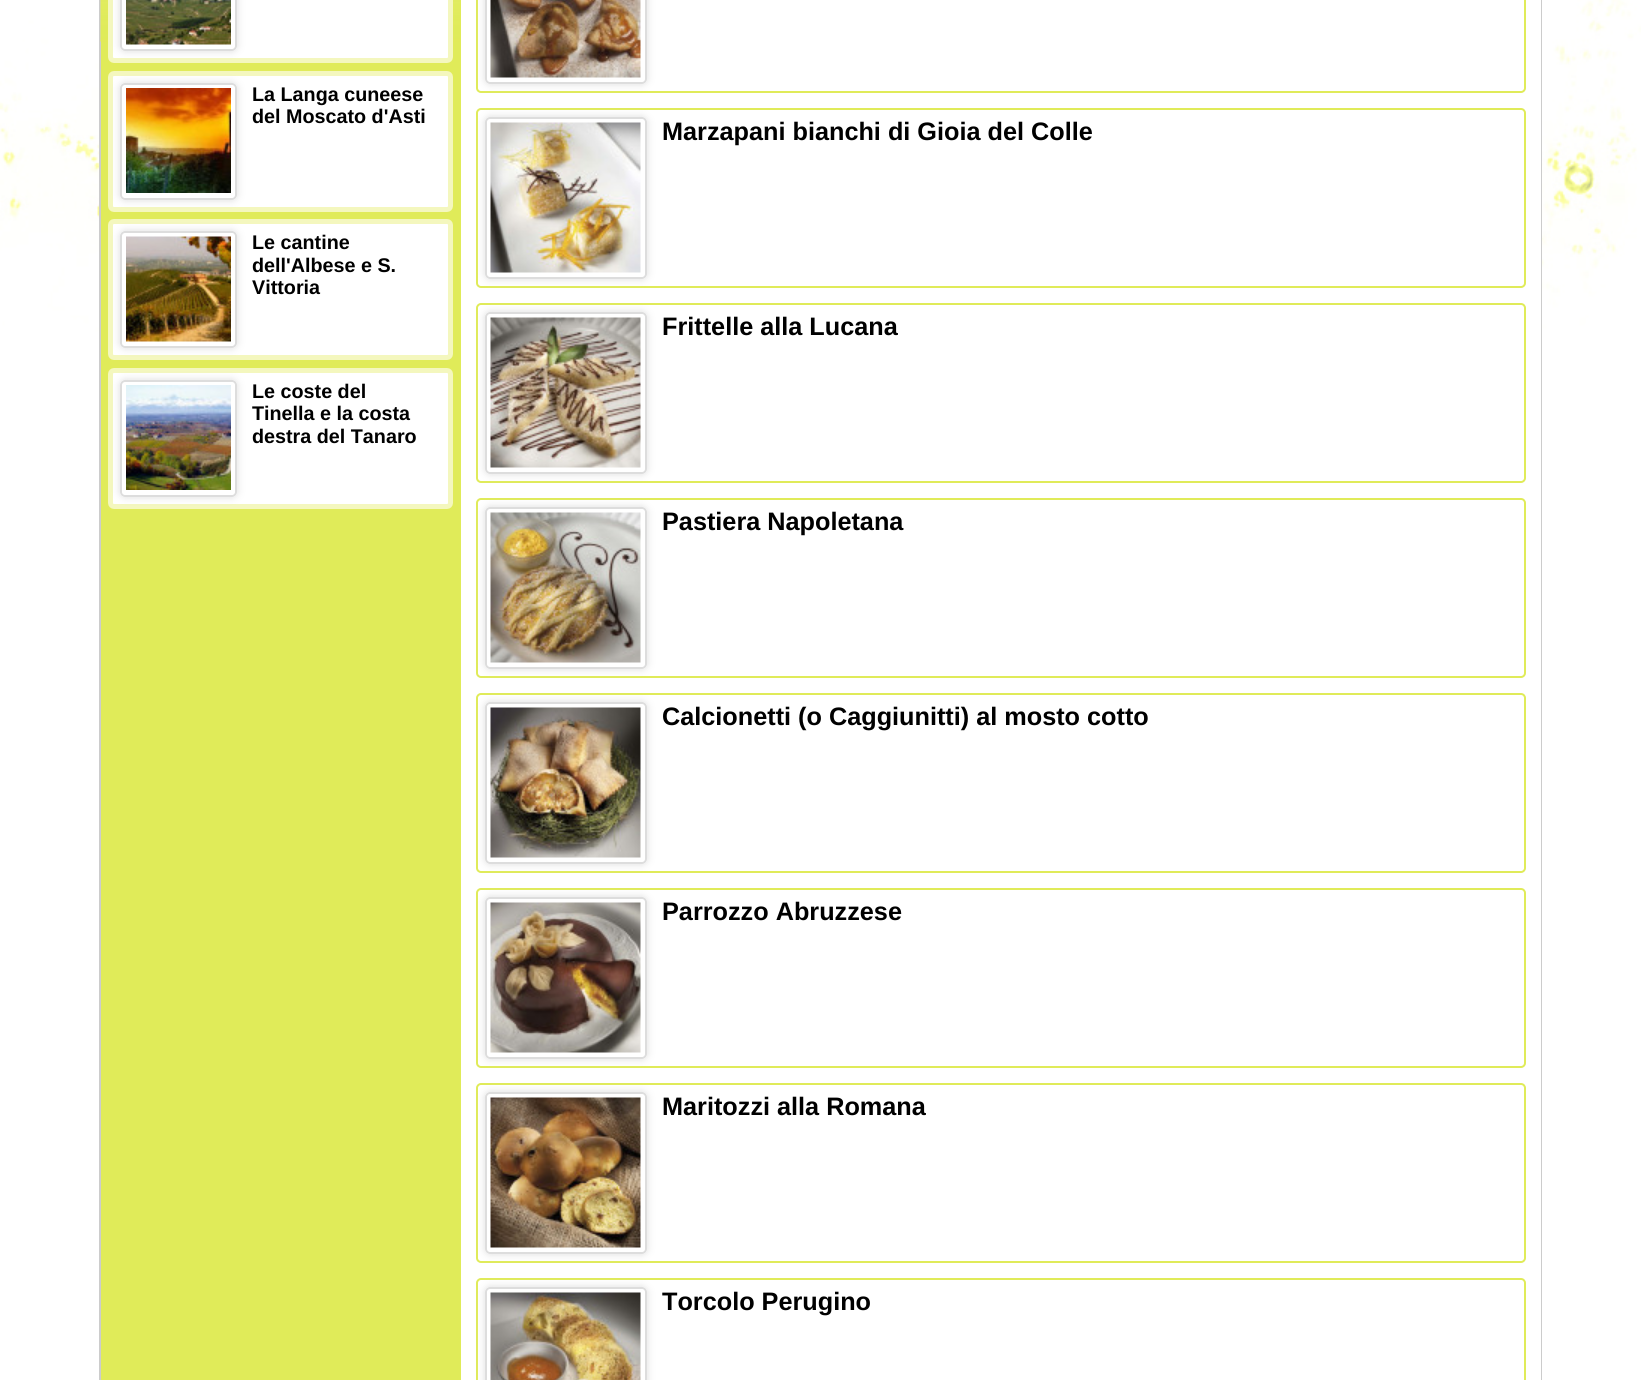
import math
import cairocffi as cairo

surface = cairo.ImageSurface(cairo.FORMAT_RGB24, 1641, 1380)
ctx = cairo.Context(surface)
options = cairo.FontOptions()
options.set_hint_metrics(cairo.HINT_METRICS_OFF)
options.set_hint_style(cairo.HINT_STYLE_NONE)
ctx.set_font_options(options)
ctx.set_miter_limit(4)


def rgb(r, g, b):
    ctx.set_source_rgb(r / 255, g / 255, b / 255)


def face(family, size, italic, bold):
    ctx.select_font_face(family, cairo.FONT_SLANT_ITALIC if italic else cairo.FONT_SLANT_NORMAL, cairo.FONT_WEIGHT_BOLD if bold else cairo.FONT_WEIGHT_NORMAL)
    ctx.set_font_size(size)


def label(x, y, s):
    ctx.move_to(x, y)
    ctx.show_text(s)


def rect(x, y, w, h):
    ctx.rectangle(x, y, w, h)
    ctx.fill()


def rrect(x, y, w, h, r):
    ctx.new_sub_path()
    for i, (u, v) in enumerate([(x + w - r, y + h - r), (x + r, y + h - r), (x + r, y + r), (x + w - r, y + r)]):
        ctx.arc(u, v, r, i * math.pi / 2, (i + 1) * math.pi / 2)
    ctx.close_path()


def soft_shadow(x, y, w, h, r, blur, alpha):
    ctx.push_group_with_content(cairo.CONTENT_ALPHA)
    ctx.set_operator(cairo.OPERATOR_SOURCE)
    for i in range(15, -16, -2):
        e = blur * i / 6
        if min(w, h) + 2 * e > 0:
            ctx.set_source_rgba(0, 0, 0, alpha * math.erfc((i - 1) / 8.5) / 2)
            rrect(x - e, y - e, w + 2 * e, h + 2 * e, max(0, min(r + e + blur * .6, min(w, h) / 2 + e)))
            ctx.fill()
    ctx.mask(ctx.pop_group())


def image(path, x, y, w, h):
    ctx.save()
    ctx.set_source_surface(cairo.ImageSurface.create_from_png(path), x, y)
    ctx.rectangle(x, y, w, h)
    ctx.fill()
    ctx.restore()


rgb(255, 255, 255)
ctx.paint()
image('image0.png', 0, 0, 1641, 400)
ctx.rectangle(100, -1, 1441, 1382)
rgb(204, 204, 204)
ctx.stroke()
rgb(255, 255, 255)
rect(461, 0, 1080, 1380)
rgb(224, 235, 89)
rect(101, 0, 360, 1380)
image('image1.png', 100, 0, 360, 42)
rgb(255, 255, 255)
rrect(110.5, -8.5, 340, 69, 3.5)
ctx.fill_preserve()
rgb(244, 247, 190)
ctx.set_line_width(5)
ctx.stroke()
ctx.save()
ctx.set_fill_rule(cairo.FILL_RULE_EVEN_ODD)
ctx.new_path()
ctx.move_to(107, 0)
ctx.line_to(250, 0)
ctx.line_to(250, 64)
ctx.line_to(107, 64)
ctx.close_path()
ctx.move_to(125, -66)
ctx.line_to(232, -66)
ctx.curve_to(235, -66, 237, -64, 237, -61)
ctx.line_to(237, 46)
ctx.curve_to(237, 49, 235, 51, 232, 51)
ctx.line_to(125, 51)
ctx.curve_to(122, 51, 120, 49, 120, 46)
ctx.line_to(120, -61)
ctx.curve_to(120, -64, 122, -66, 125, -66)
ctx.close_path()
ctx.clip()
rgb(221, 221, 221)
soft_shadow(120, -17, 117, 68, 5, 4, 1)
ctx.restore()
rrect(121, -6, 115, 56, 4)
rgb(221, 221, 221)
ctx.set_line_width(2)
ctx.stroke()
image('image2.png', 126, 0, 105, 45)
rgb(255, 255, 255)
rrect(110.5, 73.5, 340, 136, 3.5)
ctx.fill_preserve()
rgb(244, 247, 190)
ctx.set_line_width(5)
ctx.stroke()
ctx.save()
ctx.set_fill_rule(cairo.FILL_RULE_EVEN_ODD)
ctx.new_path()
ctx.move_to(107, 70)
ctx.line_to(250, 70)
ctx.line_to(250, 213)
ctx.line_to(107, 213)
ctx.close_path()
ctx.move_to(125, 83)
ctx.line_to(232, 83)
ctx.curve_to(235, 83, 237, 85, 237, 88)
ctx.line_to(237, 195)
ctx.curve_to(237, 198, 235, 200, 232, 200)
ctx.line_to(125, 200)
ctx.curve_to(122, 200, 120, 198, 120, 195)
ctx.line_to(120, 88)
ctx.curve_to(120, 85, 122, 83, 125, 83)
ctx.close_path()
ctx.clip()
rgb(221, 221, 221)
soft_shadow(120, 83, 117, 117, 5, 4, 1)
ctx.restore()
rrect(121, 84, 115, 115, 4)
rgb(221, 221, 221)
ctx.set_line_width(2)
ctx.stroke()
image('image3.png', 126, 88, 105, 105)
face('Liberation Sans', 19.75, 0, 1)
rgb(0, 0, 0)
label(252, 101, 'La Langa cuneese')
label(252, 123, 'del Moscato d\'Asti')
rgb(255, 255, 255)
rrect(110.5, 221.5, 340, 136, 3.5)
ctx.fill_preserve()
rgb(244, 247, 190)
ctx.set_line_width(5)
ctx.stroke()
ctx.save()
ctx.set_fill_rule(cairo.FILL_RULE_EVEN_ODD)
ctx.new_path()
ctx.move_to(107, 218)
ctx.line_to(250, 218)
ctx.line_to(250, 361)
ctx.line_to(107, 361)
ctx.close_path()
ctx.move_to(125, 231)
ctx.line_to(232, 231)
ctx.curve_to(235, 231, 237, 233, 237, 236)
ctx.line_to(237, 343)
ctx.curve_to(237, 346, 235, 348, 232, 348)
ctx.line_to(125, 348)
ctx.curve_to(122, 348, 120, 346, 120, 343)
ctx.line_to(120, 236)
ctx.curve_to(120, 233, 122, 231, 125, 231)
ctx.close_path()
ctx.clip()
rgb(221, 221, 221)
soft_shadow(120, 231, 117, 117, 5, 4, 1)
ctx.restore()
rrect(121, 232, 115, 115, 4)
rgb(221, 221, 221)
ctx.set_line_width(2)
ctx.stroke()
image('image4.png', 126, 236, 105, 106)
rgb(0, 0, 0)
label(252, 249, 'Le cantine')
label(252, 272, 'dell\'Albese e S.')
label(252, 294, 'Vittoria')
rgb(255, 255, 255)
rrect(110.5, 370.5, 340, 136, 3.5)
ctx.fill_preserve()
rgb(244, 247, 190)
ctx.set_line_width(5)
ctx.stroke()
ctx.save()
ctx.set_fill_rule(cairo.FILL_RULE_EVEN_ODD)
ctx.new_path()
ctx.move_to(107, 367)
ctx.line_to(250, 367)
ctx.line_to(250, 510)
ctx.line_to(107, 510)
ctx.close_path()
ctx.move_to(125, 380)
ctx.line_to(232, 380)
ctx.curve_to(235, 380, 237, 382, 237, 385)
ctx.line_to(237, 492)
ctx.curve_to(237, 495, 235, 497, 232, 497)
ctx.line_to(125, 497)
ctx.curve_to(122, 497, 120, 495, 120, 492)
ctx.line_to(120, 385)
ctx.curve_to(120, 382, 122, 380, 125, 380)
ctx.close_path()
ctx.clip()
rgb(221, 221, 221)
soft_shadow(120, 380, 117, 117, 5, 4, 1)
ctx.restore()
rrect(121, 381, 115, 115, 4)
rgb(221, 221, 221)
ctx.set_line_width(2)
ctx.stroke()
image('image5.png', 126, 385, 105, 105)
rgb(0, 0, 0)
label(252, 398, 'Le coste del')
label(252, 420, 'Tinella e la costa')
label(252, 443, 'destra del Tanaro')
rrect(477, -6, 1048, 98, 4)
rgb(224, 235, 89)
ctx.stroke()
ctx.save()
ctx.set_fill_rule(cairo.FILL_RULE_EVEN_ODD)
ctx.new_path()
ctx.move_to(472, 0)
ctx.line_to(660, 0)
ctx.line_to(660, 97)
ctx.line_to(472, 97)
ctx.close_path()
ctx.move_to(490, -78)
ctx.line_to(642, -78)
ctx.curve_to(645, -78, 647, -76, 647, -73)
ctx.line_to(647, 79)
ctx.curve_to(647, 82, 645, 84, 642, 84)
ctx.line_to(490, 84)
ctx.curve_to(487, 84, 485, 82, 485, 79)
ctx.line_to(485, -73)
ctx.curve_to(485, -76, 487, -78, 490, -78)
ctx.close_path()
ctx.clip()
rgb(221, 221, 221)
soft_shadow(485, -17, 162, 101, 5, 4, 1)
ctx.restore()
rrect(486, -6, 160, 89, 4)
rgb(221, 221, 221)
ctx.stroke()
image('image6.png', 490, 0, 151, 78)
rrect(477, 109, 1048, 178, 4)
rgb(224, 235, 89)
ctx.stroke()
ctx.save()
ctx.set_fill_rule(cairo.FILL_RULE_EVEN_ODD)
ctx.new_path()
ctx.move_to(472, 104)
ctx.line_to(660, 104)
ctx.line_to(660, 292)
ctx.line_to(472, 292)
ctx.close_path()
ctx.move_to(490, 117)
ctx.line_to(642, 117)
ctx.curve_to(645, 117, 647, 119, 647, 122)
ctx.line_to(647, 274)
ctx.curve_to(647, 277, 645, 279, 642, 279)
ctx.line_to(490, 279)
ctx.curve_to(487, 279, 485, 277, 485, 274)
ctx.line_to(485, 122)
ctx.curve_to(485, 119, 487, 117, 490, 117)
ctx.close_path()
ctx.clip()
rgb(221, 221, 221)
soft_shadow(485, 117, 162, 162, 5, 4, 1)
ctx.restore()
rrect(486, 118, 160, 160, 4)
rgb(221, 221, 221)
ctx.stroke()
image('image7.png', 490, 122, 151, 151)
face('Liberation Sans', 25.25, 0, 1)
rgb(0, 0, 0)
label(662, 140, 'Marzapani bianchi di Gioia del Colle')
rrect(477, 304, 1048, 178, 4)
rgb(224, 235, 89)
ctx.stroke()
ctx.save()
ctx.set_fill_rule(cairo.FILL_RULE_EVEN_ODD)
ctx.new_path()
ctx.move_to(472, 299)
ctx.line_to(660, 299)
ctx.line_to(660, 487)
ctx.line_to(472, 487)
ctx.close_path()
ctx.move_to(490, 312)
ctx.line_to(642, 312)
ctx.curve_to(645, 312, 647, 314, 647, 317)
ctx.line_to(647, 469)
ctx.curve_to(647, 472, 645, 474, 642, 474)
ctx.line_to(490, 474)
ctx.curve_to(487, 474, 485, 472, 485, 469)
ctx.line_to(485, 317)
ctx.curve_to(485, 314, 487, 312, 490, 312)
ctx.close_path()
ctx.clip()
rgb(221, 221, 221)
soft_shadow(485, 312, 162, 162, 5, 4, 1)
ctx.restore()
rrect(486, 313, 160, 160, 4)
rgb(221, 221, 221)
ctx.stroke()
image('image8.png', 490, 317, 151, 151)
rgb(0, 0, 0)
label(662, 335, 'Frittelle alla Lucana')
rrect(477, 499, 1048, 178, 4)
rgb(224, 235, 89)
ctx.stroke()
ctx.save()
ctx.set_fill_rule(cairo.FILL_RULE_EVEN_ODD)
ctx.new_path()
ctx.move_to(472, 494)
ctx.line_to(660, 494)
ctx.line_to(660, 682)
ctx.line_to(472, 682)
ctx.close_path()
ctx.move_to(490, 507)
ctx.line_to(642, 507)
ctx.curve_to(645, 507, 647, 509, 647, 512)
ctx.line_to(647, 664)
ctx.curve_to(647, 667, 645, 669, 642, 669)
ctx.line_to(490, 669)
ctx.curve_to(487, 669, 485, 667, 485, 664)
ctx.line_to(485, 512)
ctx.curve_to(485, 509, 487, 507, 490, 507)
ctx.close_path()
ctx.clip()
rgb(221, 221, 221)
soft_shadow(485, 507, 162, 162, 5, 4, 1)
ctx.restore()
rrect(486, 508, 160, 160, 4)
rgb(221, 221, 221)
ctx.stroke()
image('image9.png', 490, 512, 151, 151)
rgb(0, 0, 0)
label(662, 530, 'Pastiera Napoletana')
rrect(477, 694, 1048, 178, 4)
rgb(224, 235, 89)
ctx.stroke()
ctx.save()
ctx.set_fill_rule(cairo.FILL_RULE_EVEN_ODD)
ctx.new_path()
ctx.move_to(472, 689)
ctx.line_to(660, 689)
ctx.line_to(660, 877)
ctx.line_to(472, 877)
ctx.close_path()
ctx.move_to(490, 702)
ctx.line_to(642, 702)
ctx.curve_to(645, 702, 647, 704, 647, 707)
ctx.line_to(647, 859)
ctx.curve_to(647, 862, 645, 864, 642, 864)
ctx.line_to(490, 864)
ctx.curve_to(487, 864, 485, 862, 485, 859)
ctx.line_to(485, 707)
ctx.curve_to(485, 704, 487, 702, 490, 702)
ctx.close_path()
ctx.clip()
rgb(221, 221, 221)
soft_shadow(485, 702, 162, 162, 5, 4, 1)
ctx.restore()
rrect(486, 703, 160, 160, 4)
rgb(221, 221, 221)
ctx.stroke()
image('image10.png', 490, 707, 151, 151)
rgb(0, 0, 0)
label(662, 725, 'Calcionetti (o Caggiunitti) al mosto cotto')
rrect(477, 889, 1048, 178, 4)
rgb(224, 235, 89)
ctx.stroke()
ctx.save()
ctx.set_fill_rule(cairo.FILL_RULE_EVEN_ODD)
ctx.new_path()
ctx.move_to(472, 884)
ctx.line_to(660, 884)
ctx.line_to(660, 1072)
ctx.line_to(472, 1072)
ctx.close_path()
ctx.move_to(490, 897)
ctx.line_to(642, 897)
ctx.curve_to(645, 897, 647, 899, 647, 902)
ctx.line_to(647, 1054)
ctx.curve_to(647, 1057, 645, 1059, 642, 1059)
ctx.line_to(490, 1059)
ctx.curve_to(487, 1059, 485, 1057, 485, 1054)
ctx.line_to(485, 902)
ctx.curve_to(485, 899, 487, 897, 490, 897)
ctx.close_path()
ctx.clip()
rgb(221, 221, 221)
soft_shadow(485, 897, 162, 162, 5, 4, 1)
ctx.restore()
rrect(486, 898, 160, 160, 4)
rgb(221, 221, 221)
ctx.stroke()
image('image11.png', 490, 902, 151, 151)
rgb(0, 0, 0)
label(662, 920, 'Parrozzo Abruzzese')
rrect(477, 1084, 1048, 178, 4)
rgb(224, 235, 89)
ctx.stroke()
ctx.save()
ctx.set_fill_rule(cairo.FILL_RULE_EVEN_ODD)
ctx.new_path()
ctx.move_to(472, 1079)
ctx.line_to(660, 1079)
ctx.line_to(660, 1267)
ctx.line_to(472, 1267)
ctx.close_path()
ctx.move_to(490, 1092)
ctx.line_to(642, 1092)
ctx.curve_to(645, 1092, 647, 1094, 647, 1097)
ctx.line_to(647, 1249)
ctx.curve_to(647, 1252, 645, 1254, 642, 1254)
ctx.line_to(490, 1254)
ctx.curve_to(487, 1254, 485, 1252, 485, 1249)
ctx.line_to(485, 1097)
ctx.curve_to(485, 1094, 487, 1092, 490, 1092)
ctx.close_path()
ctx.clip()
rgb(221, 221, 221)
soft_shadow(485, 1092, 162, 162, 5, 4, 1)
ctx.restore()
rrect(486, 1093, 160, 160, 4)
rgb(221, 221, 221)
ctx.stroke()
image('image12.png', 490, 1097, 151, 151)
rgb(0, 0, 0)
label(662, 1115, 'Maritozzi alla Romana')
rrect(477, 1279, 1048, 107, 4)
rgb(224, 235, 89)
ctx.stroke()
ctx.save()
ctx.set_fill_rule(cairo.FILL_RULE_EVEN_ODD)
ctx.new_path()
ctx.move_to(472, 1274)
ctx.line_to(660, 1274)
ctx.line_to(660, 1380)
ctx.line_to(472, 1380)
ctx.close_path()
ctx.move_to(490, 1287)
ctx.line_to(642, 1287)
ctx.curve_to(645, 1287, 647, 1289, 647, 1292)
ctx.line_to(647, 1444)
ctx.curve_to(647, 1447, 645, 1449, 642, 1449)
ctx.line_to(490, 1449)
ctx.curve_to(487, 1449, 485, 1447, 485, 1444)
ctx.line_to(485, 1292)
ctx.curve_to(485, 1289, 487, 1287, 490, 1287)
ctx.close_path()
ctx.clip()
rgb(221, 221, 221)
soft_shadow(485, 1287, 162, 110, 5, 4, 1)
ctx.restore()
rrect(486, 1288, 160, 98, 4)
rgb(221, 221, 221)
ctx.stroke()
image('image13.png', 490, 1292, 151, 88)
rgb(0, 0, 0)
label(662, 1310, 'Torcolo Perugino')
surface.write_to_png('render.png')
